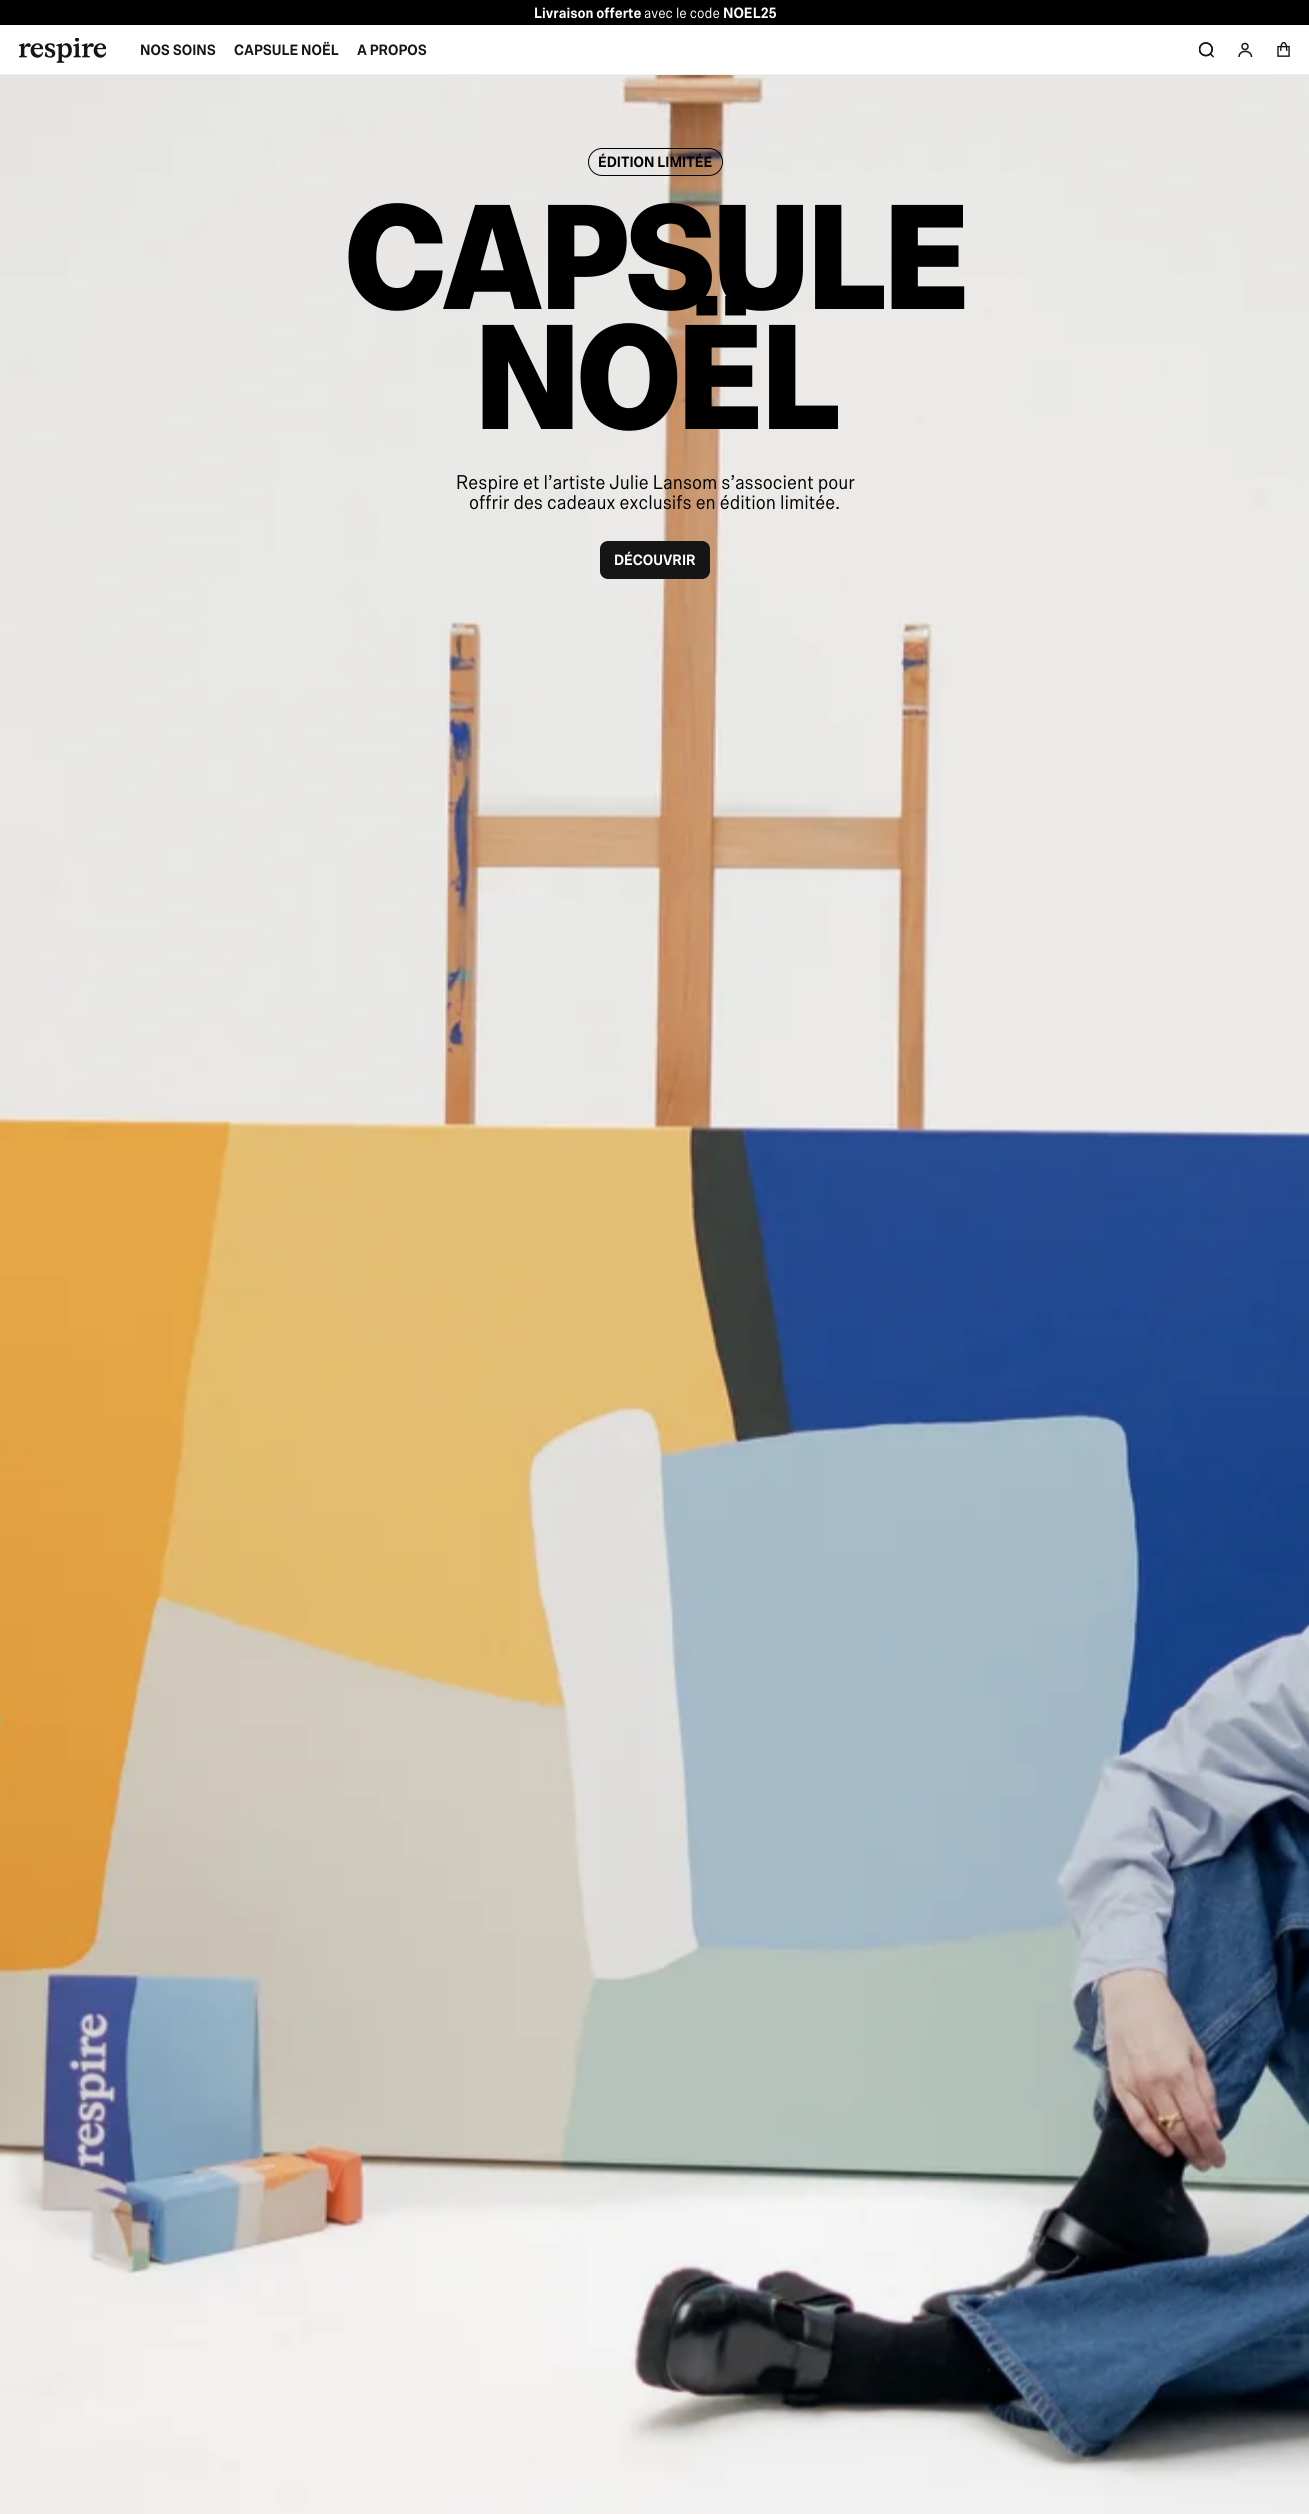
import math
import cairocffi as cairo

surface = cairo.ImageSurface(cairo.FORMAT_RGB24, 1309, 2514)
ctx = cairo.Context(surface)
options = cairo.FontOptions()
options.set_hint_metrics(cairo.HINT_METRICS_OFF)
options.set_hint_style(cairo.HINT_STYLE_NONE)
ctx.set_font_options(options)
ctx.set_miter_limit(4)


def rgb(r, g, b):
    ctx.set_source_rgb(r / 255, g / 255, b / 255)


def face(family, size, italic, bold):
    ctx.select_font_face(family, cairo.FONT_SLANT_ITALIC if italic else cairo.FONT_SLANT_NORMAL, cairo.FONT_WEIGHT_BOLD if bold else cairo.FONT_WEIGHT_NORMAL)
    ctx.set_font_size(size)


def label(x, y, s):
    ctx.move_to(x, y)
    ctx.show_text(s)


def tracked(x, y, s, letter, word):
    ctx.move_to(x, y)
    for ch in s:
        ctx.show_text(ch)
        ctx.rel_move_to(letter + word * (ch == ' '), 0)


def rect(x, y, w, h):
    ctx.rectangle(x, y, w, h)
    ctx.fill()


def rrect(x, y, w, h, r):
    ctx.new_sub_path()
    for i, (u, v) in enumerate([(x + w - r, y + h - r), (x + r, y + h - r), (x + r, y + r), (x + w - r, y + r)]):
        ctx.arc(u, v, r, i * math.pi / 2, (i + 1) * math.pi / 2)
    ctx.close_path()


def image(path, x, y, w, h):
    ctx.save()
    ctx.set_source_surface(cairo.ImageSurface.create_from_png(path), x, y)
    ctx.rectangle(x, y, w, h)
    ctx.fill()
    ctx.restore()


rgb(255, 255, 255)
ctx.paint()
rgb(0, 0, 0)
rect(0, 0, 1309, 25)
face('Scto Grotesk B', 15, 0, 1)
rgb(255, 255, 255)
label(534, 18, 'Livraison offerte')
face('Scto Grotesk B', 15, 0, 0)
label(644, 18, 'avec le code')
face('Scto Grotesk B', 15, 0, 1)
label(723, 18, 'NOEL25')
rgb(239, 239, 239)
rect(0, 74, 1309, 1)
image('image0.png', 19, 38, 87, 25)
rgb(21, 21, 21)
label(140, 55, 'NOS SOINS')
label(234, 55, 'CAPSULE NOËL')
label(357, 55, 'A PROPOS')
image('image1.png', 1199, 42, 15, 16)
ctx.new_path()
ctx.move_to(1239, 57)
ctx.curve_to(1239, 49.5, 1251.5, 49.5, 1251.5, 57)
ctx.set_line_width(1.5)
ctx.stroke()
ctx.arc(1245, 46.5, 3, 0, 2 * math.pi)
ctx.stroke()
image('image2.png', 1277, 42, 13, 15)
image('image3.png', 0, 75, 1309, 2439)
rrect(588.5, 148.5, 134, 27, 13.5)
rgb(0, 0, 0)
ctx.set_line_width(1)
ctx.stroke()
label(598, 167, 'ÉDITION LIMITÉE')
face('Scto Grotesk B Black', 150, 0, 0)
tracked(344, 309, 'CAPSULE', -6, 0)
tracked(473, 429, 'NOËL', -6, 0)
face('Scto Grotesk B', 20, 0, 0)
label(456, 489, 'Respire et l’artiste Julie Lansom s’associent pour')
label(469, 509, 'offrir des cadeaux exclusifs en édition limitée.')
rgb(21, 21, 21)
rrect(600, 541, 110, 38, 8)
ctx.fill()
face('Scto Grotesk B', 15, 0, 1)
rgb(255, 255, 255)
label(614, 565, 'DÉCOUVRIR')
surface.write_to_png('render.png')
